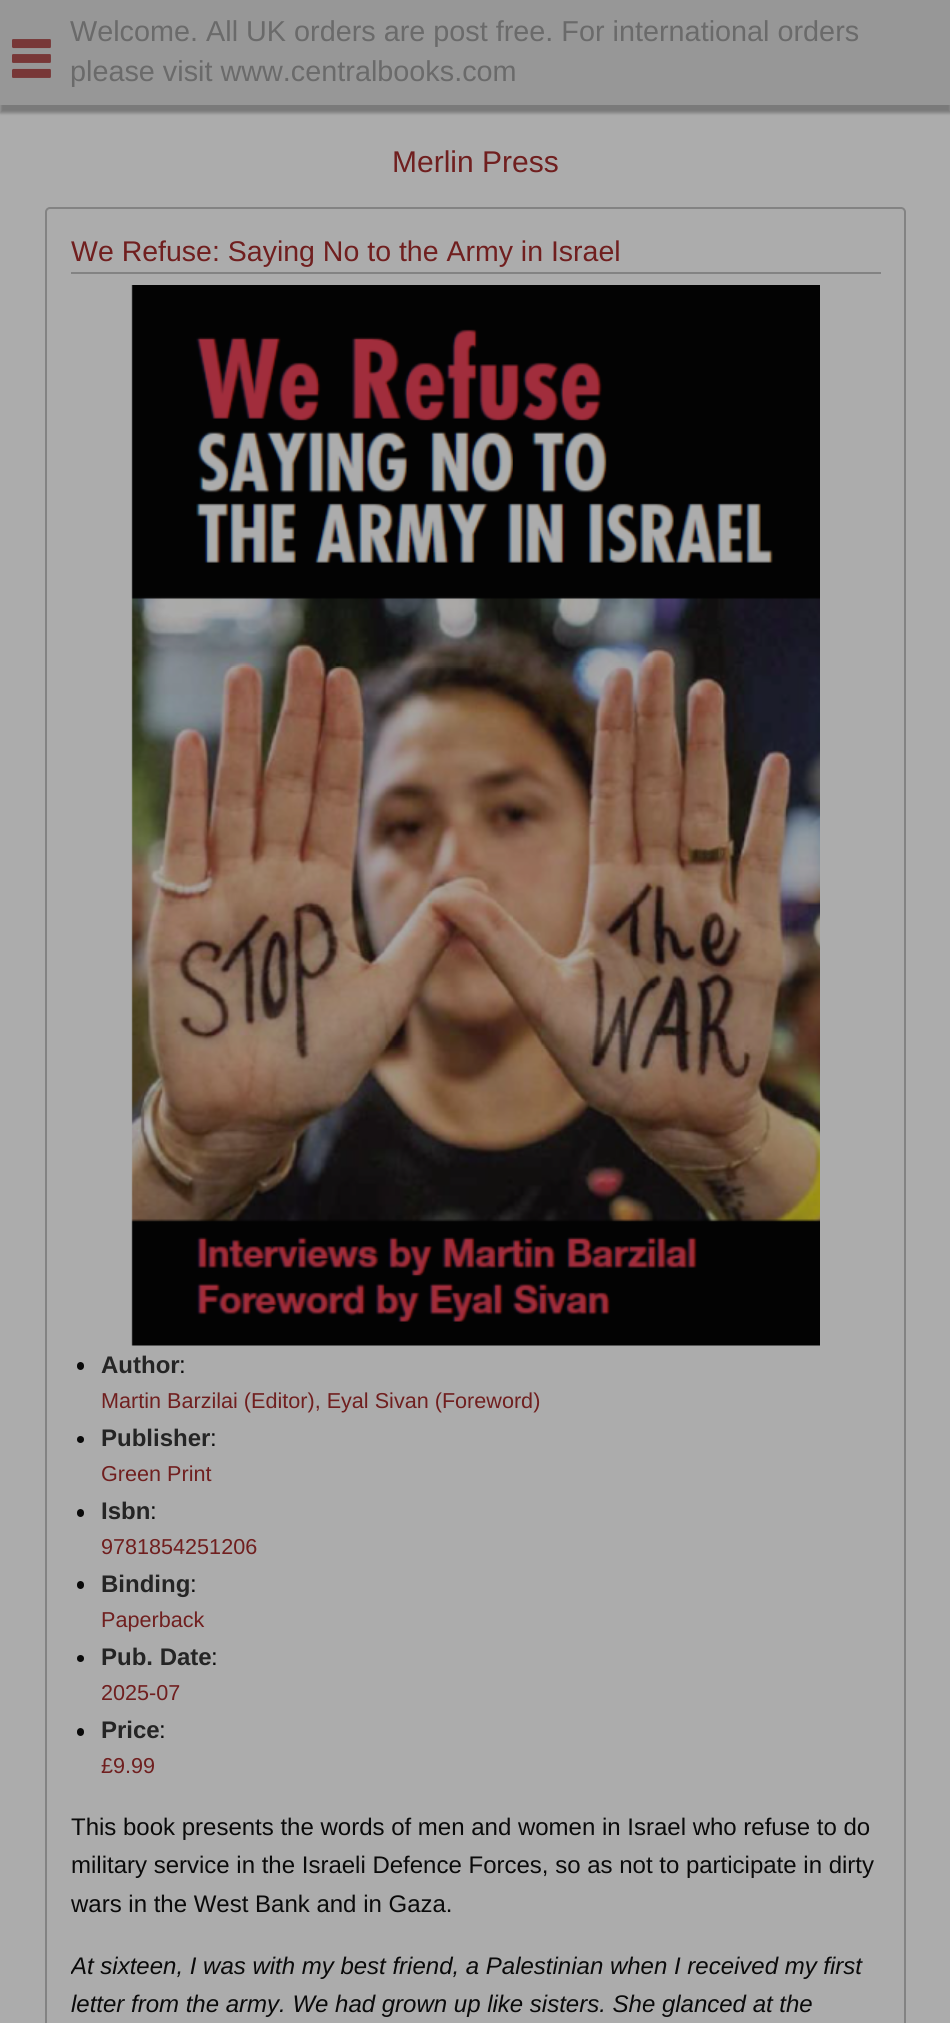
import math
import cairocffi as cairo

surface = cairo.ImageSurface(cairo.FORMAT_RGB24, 950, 2023)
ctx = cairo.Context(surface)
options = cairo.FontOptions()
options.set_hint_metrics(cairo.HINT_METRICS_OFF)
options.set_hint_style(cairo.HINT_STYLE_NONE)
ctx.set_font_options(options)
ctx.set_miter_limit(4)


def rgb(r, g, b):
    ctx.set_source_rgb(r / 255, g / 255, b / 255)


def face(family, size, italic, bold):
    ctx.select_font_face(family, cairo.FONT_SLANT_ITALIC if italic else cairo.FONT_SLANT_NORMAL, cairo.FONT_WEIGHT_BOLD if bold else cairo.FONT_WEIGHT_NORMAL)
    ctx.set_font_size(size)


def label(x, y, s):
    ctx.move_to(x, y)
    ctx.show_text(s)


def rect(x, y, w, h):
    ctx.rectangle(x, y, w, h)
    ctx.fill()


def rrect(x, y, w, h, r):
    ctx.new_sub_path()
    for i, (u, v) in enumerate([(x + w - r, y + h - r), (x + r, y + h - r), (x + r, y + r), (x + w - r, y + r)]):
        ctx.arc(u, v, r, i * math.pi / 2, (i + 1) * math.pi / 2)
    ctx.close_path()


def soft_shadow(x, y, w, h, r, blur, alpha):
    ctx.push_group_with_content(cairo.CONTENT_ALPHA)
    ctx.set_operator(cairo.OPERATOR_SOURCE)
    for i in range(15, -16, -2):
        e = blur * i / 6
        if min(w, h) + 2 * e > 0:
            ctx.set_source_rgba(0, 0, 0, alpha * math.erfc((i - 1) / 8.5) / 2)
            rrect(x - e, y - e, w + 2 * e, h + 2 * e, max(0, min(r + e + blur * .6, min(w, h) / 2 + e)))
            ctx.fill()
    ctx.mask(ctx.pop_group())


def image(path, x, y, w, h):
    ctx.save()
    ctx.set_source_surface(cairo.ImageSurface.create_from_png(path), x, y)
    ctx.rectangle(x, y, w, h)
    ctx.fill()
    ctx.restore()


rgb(172, 172, 172)
ctx.paint()
rgb(3, 3, 3)
soft_shadow(0, 8, 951, 105, 0, 1.5, 0.3)
rgb(151, 151, 151)
rect(0, 0, 950, 105)
image('image0.png', 12, 39, 39, 39)
face('Liberation Sans', 28.8, 0, 0)
rgb(106, 106, 106)
label(70, 41, 'Welcome. All UK orders are post free. For international orders')
label(70, 81, 'please visit www.centralbooks.com')
face('Liberation Sans', 30, 0, 0)
rgb(112, 31, 31)
label(392, 172, 'Merlin Press')
rrect(46, 208, 859, 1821, 4)
rgb(131, 131, 131)
ctx.stroke()
rect(71, 272, 810, 2)
face('Liberation Sans', 28.5, 0, 0)
rgb(112, 31, 31)
label(71, 261, 'We Refuse: Saying No to the Army in Israel')
image('image1.png', 131, 285, 689, 1061)
rgb(10, 10, 10)
rrect(77, 1362, 7, 8, 3.5)
ctx.fill()
face('Liberation Sans', 24, 0, 1)
rgb(37, 37, 37)
label(101, 1373, 'Author')
face('Liberation Sans', 24, 0, 0)
rgb(10, 10, 10)
label(179, 1373, ':')
face('Liberation Sans', 21.6, 0, 0)
rgb(112, 31, 31)
label(101, 1408, 'Martin Barzilai (Editor), Eyal Sivan (Foreword)')
rgb(10, 10, 10)
ctx.new_path()
ctx.arc(80.5, 1439.5, 3.5, 0, 2 * math.pi)
ctx.fill()
face('Liberation Sans', 24, 0, 1)
rgb(37, 37, 37)
label(101, 1446, 'Publisher')
face('Liberation Sans', 24, 0, 0)
rgb(10, 10, 10)
label(210, 1446, ':')
face('Liberation Sans', 21.6, 0, 0)
rgb(112, 31, 31)
label(101, 1481, 'Green Print')
rgb(10, 10, 10)
rrect(77, 1509, 7, 8, 3.5)
ctx.fill()
face('Liberation Sans', 24, 0, 1)
rgb(37, 37, 37)
label(101, 1519, 'Isbn')
face('Liberation Sans', 24, 0, 0)
rgb(10, 10, 10)
label(150, 1519, ':')
face('Liberation Sans', 21.6, 0, 0)
rgb(112, 31, 31)
label(101, 1554, '9781854251206')
rgb(10, 10, 10)
rrect(77, 1581, 7, 8, 3.5)
ctx.fill()
face('Liberation Sans', 24, 0, 1)
rgb(37, 37, 37)
label(101, 1592, 'Binding')
face('Liberation Sans', 24, 0, 0)
rgb(10, 10, 10)
label(190, 1592, ':')
face('Liberation Sans', 21.6, 0, 0)
rgb(112, 31, 31)
label(101, 1627, 'Paperback')
rgb(10, 10, 10)
ctx.new_path()
ctx.arc(80.5, 1658.5, 3.5, 0, 2 * math.pi)
ctx.fill()
face('Liberation Sans', 24, 0, 1)
rgb(37, 37, 37)
label(101, 1665, 'Pub. Date')
face('Liberation Sans', 24, 0, 0)
rgb(10, 10, 10)
label(211, 1665, ':')
face('Liberation Sans', 21.6, 0, 0)
rgb(112, 31, 31)
label(101, 1700, '2025-07')
rgb(10, 10, 10)
rrect(77, 1728, 7, 8, 3.5)
ctx.fill()
face('Liberation Sans', 24, 0, 1)
rgb(37, 37, 37)
label(101, 1738, 'Price')
face('Liberation Sans', 24, 0, 0)
rgb(10, 10, 10)
label(159, 1738, ':')
face('Liberation Sans', 21.6, 0, 0)
rgb(112, 31, 31)
label(101, 1773, '£9.99')
face('Liberation Sans', 24, 0, 0)
rgb(10, 10, 10)
label(71, 1835, 'This book presents the words of men and women in Israel who refuse to do')
label(71, 1873, 'military service in the Israeli Defence Forces, so as not to participate in dirty')
label(71, 1912, 'wars in the West Bank and in Gaza.')
ctx.save()
ctx.rectangle(71, 1808, 810, 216)
ctx.clip()
face('Liberation Sans', 24, 1, 0)
label(71, 1974, 'At sixteen, I was with my best friend, a Palestinian when I received my first')
ctx.restore()
face('Liberation Sans', 24, 1, 0)
label(71, 2012, 'letter from the army. We had grown up like sisters. She glanced at the')
surface.write_to_png('render.png')
